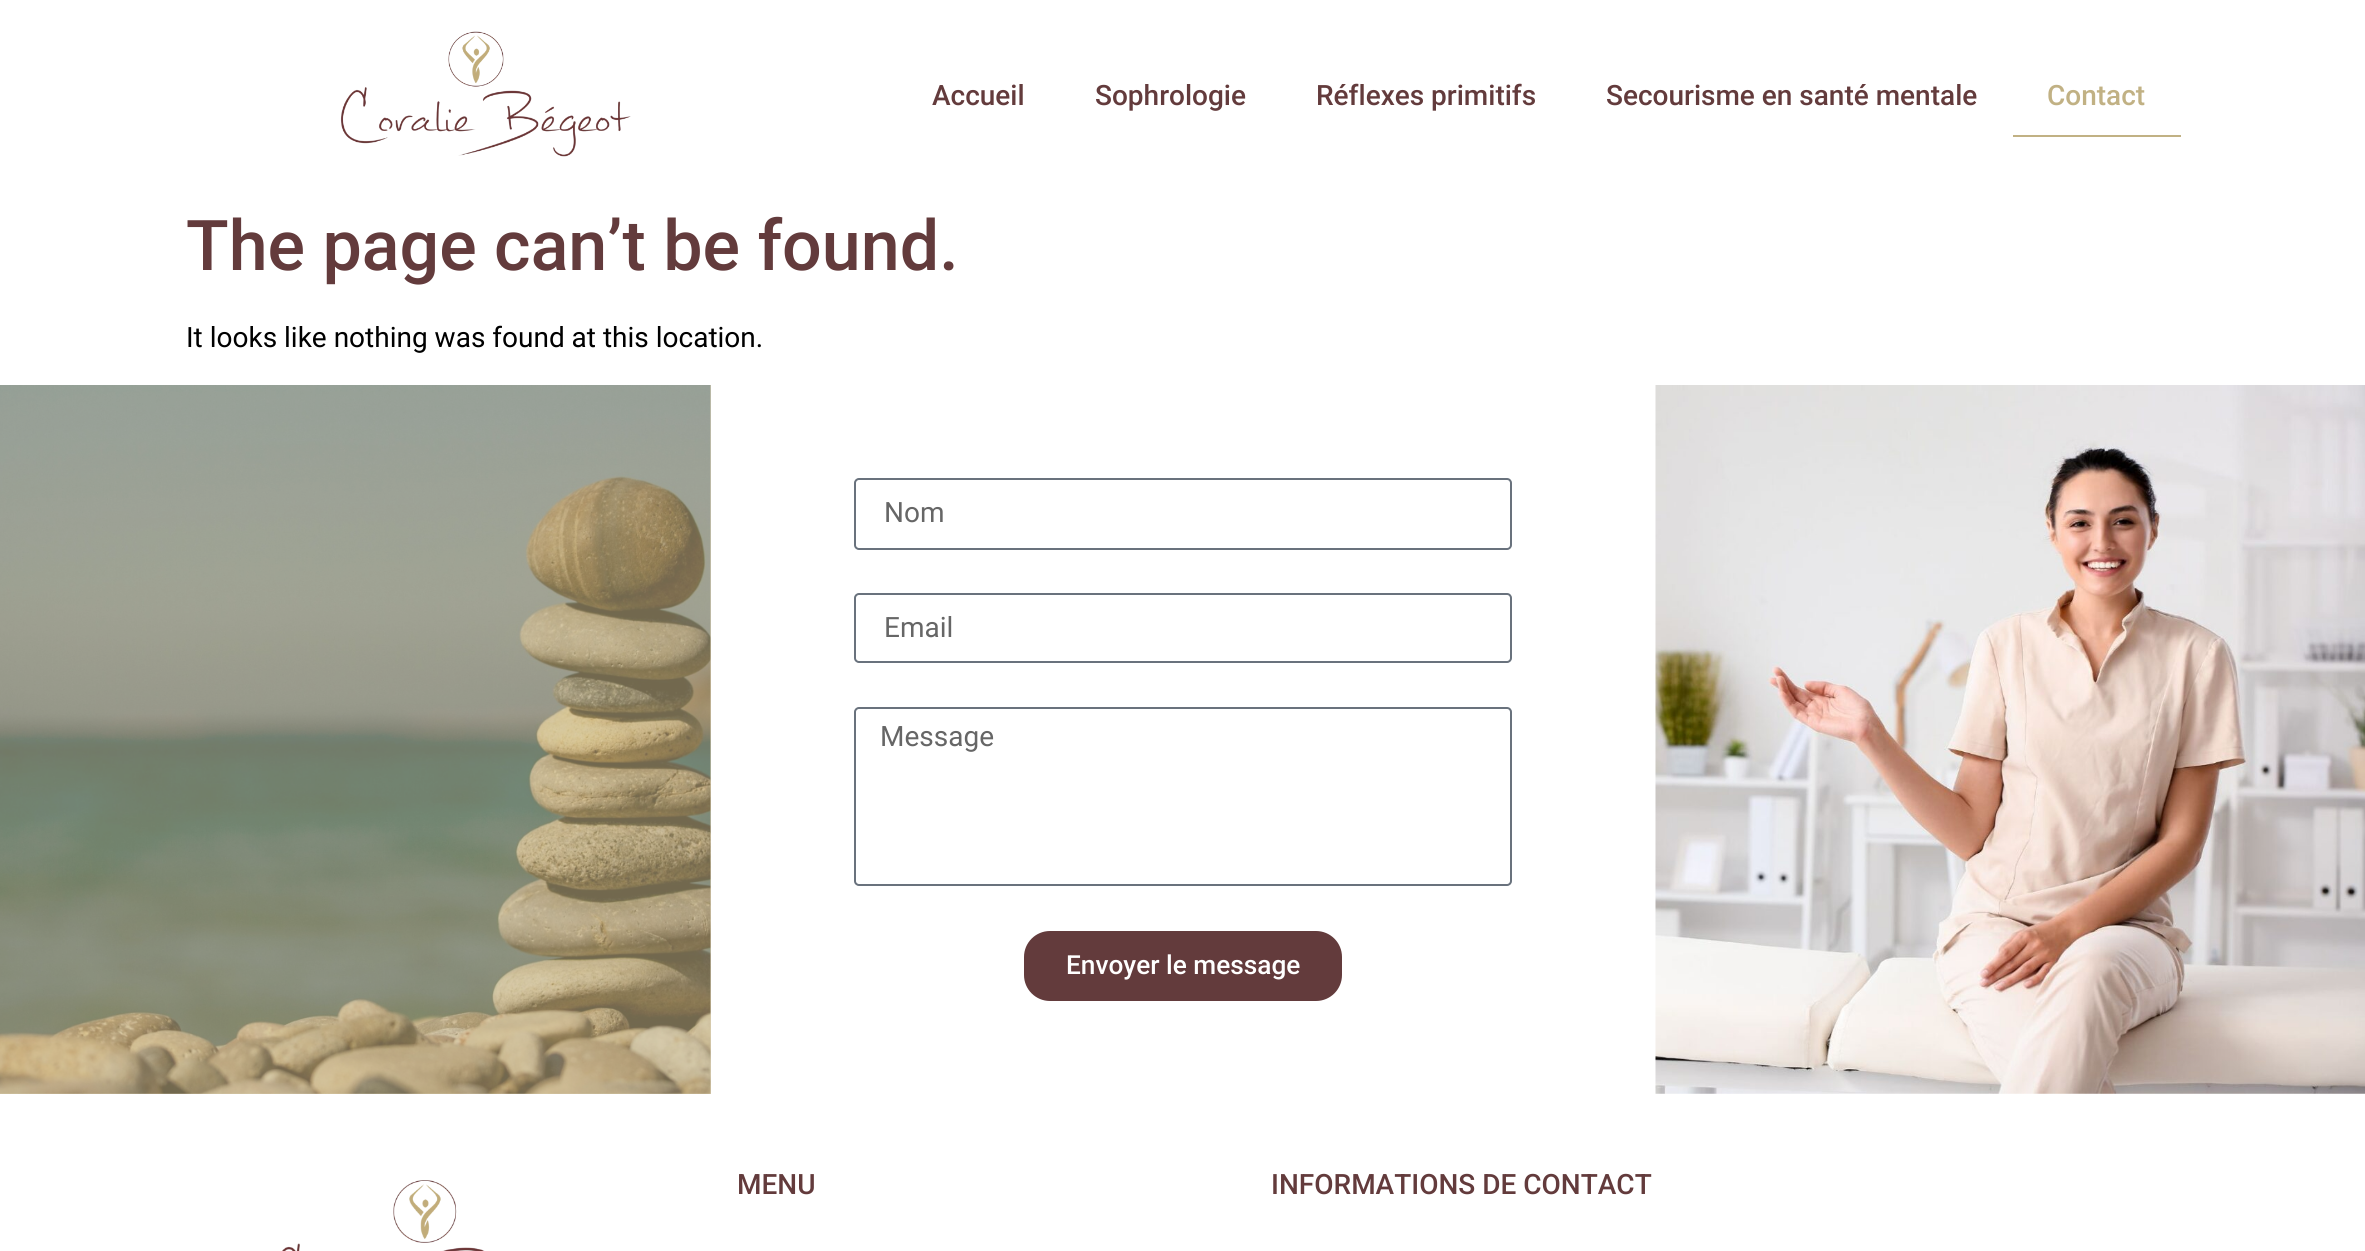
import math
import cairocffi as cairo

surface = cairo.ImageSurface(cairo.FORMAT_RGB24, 2365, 1251)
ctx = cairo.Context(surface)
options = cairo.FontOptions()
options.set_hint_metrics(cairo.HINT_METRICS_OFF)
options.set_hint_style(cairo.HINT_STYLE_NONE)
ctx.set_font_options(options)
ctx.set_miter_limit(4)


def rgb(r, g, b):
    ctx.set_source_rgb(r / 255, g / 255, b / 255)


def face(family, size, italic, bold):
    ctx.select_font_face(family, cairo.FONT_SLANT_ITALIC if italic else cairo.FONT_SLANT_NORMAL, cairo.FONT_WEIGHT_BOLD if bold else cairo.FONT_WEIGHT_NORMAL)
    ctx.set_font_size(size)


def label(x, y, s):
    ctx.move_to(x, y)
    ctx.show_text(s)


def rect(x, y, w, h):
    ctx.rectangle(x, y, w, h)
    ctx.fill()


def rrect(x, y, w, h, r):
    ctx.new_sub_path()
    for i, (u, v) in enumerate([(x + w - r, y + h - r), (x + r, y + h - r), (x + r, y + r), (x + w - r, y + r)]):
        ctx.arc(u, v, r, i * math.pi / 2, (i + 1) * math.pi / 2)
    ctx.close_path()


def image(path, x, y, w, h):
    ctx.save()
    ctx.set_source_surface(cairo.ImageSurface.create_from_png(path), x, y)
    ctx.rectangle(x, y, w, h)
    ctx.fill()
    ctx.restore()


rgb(255, 255, 255)
ctx.paint()
rgb(218, 209, 182)
rect(0, 385, 711, 709)
image('image0.png', 340, 31, 291, 126)
face('Roboto Medium', 28, 0, 0)
rgb(99, 59, 60)
label(932, 105, 'Accueil')
label(1095, 105, 'Sophrologie')
label(1316, 105, 'Réflexes primitifs')
label(1606, 105, 'Secourisme en santé mentale')
rgb(193, 177, 132)
label(2047, 105, 'Contact')
rect(2013, 135, 168, 2)
face('Roboto Medium', 70, 0, 0)
rgb(99, 59, 60)
label(186, 270, 'The page can’t be found.')
face('Roboto', 28, 0, 0)
rgb(0, 0, 0)
label(186, 347, 'It looks like nothing was found at this location.')
image('image1.png', 0, 385, 711, 709)
rrect(855, 479, 656, 70, 4)
rgb(105, 114, 125)
ctx.stroke()
rgb(102, 102, 102)
label(884, 522, 'Nom')
rrect(855, 594, 656, 68, 4)
rgb(105, 114, 125)
ctx.stroke()
rgb(102, 102, 102)
label(884, 637, 'Email')
rrect(855, 708, 656, 177, 4)
rgb(105, 114, 125)
ctx.stroke()
rgb(102, 102, 102)
label(880, 746, 'Message')
rgb(99, 59, 60)
rrect(1024, 931, 318, 70, 26)
ctx.fill()
face('Roboto Medium', 26.25, 0, 0)
rgb(255, 255, 255)
label(1066, 974, 'Envoyer le message')
image('image2.png', 1655, 385, 710, 709)
image('image3.png', 282, 1180, 203, 71)
face('Roboto Medium', 28, 0, 0)
rgb(99, 59, 60)
label(737, 1194, 'MENU')
label(1271, 1194, 'INFORMATIONS DE CONTACT')
surface.write_to_png('render.png')
